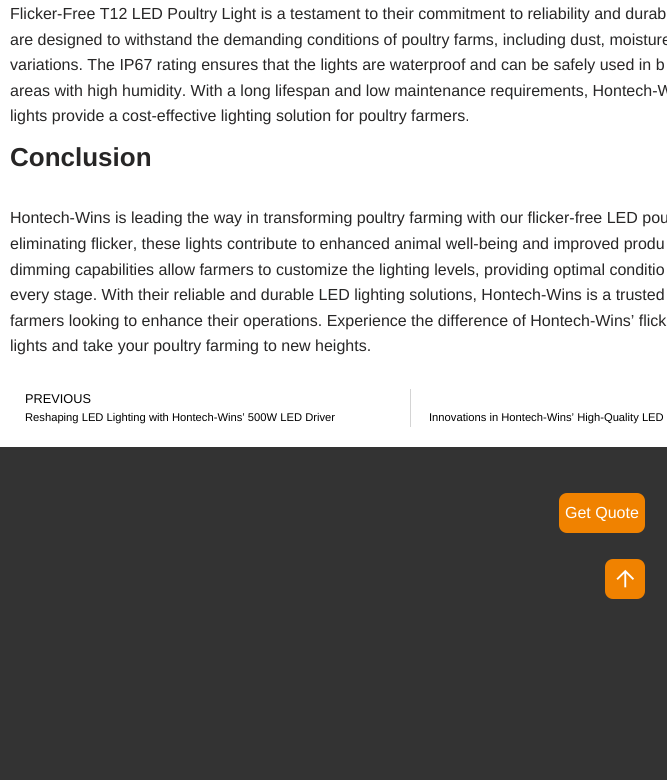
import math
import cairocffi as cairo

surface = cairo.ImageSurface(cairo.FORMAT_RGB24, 667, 780)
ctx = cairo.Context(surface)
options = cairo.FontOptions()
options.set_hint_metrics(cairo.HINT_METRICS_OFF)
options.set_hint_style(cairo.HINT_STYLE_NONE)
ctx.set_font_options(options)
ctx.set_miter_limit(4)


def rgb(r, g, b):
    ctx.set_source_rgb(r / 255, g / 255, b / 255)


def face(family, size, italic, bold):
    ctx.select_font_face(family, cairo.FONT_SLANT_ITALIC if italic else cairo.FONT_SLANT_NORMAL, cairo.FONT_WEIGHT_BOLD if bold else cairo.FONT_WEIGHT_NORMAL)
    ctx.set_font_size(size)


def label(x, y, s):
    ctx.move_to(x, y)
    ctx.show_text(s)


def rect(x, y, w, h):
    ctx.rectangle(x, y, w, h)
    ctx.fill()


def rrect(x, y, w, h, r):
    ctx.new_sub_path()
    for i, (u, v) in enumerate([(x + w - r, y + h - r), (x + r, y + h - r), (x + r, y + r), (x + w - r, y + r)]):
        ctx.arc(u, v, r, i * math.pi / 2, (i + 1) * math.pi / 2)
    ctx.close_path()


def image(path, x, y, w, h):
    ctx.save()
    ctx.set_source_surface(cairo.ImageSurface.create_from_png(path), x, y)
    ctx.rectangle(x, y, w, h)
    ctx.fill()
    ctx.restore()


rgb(255, 255, 255)
ctx.paint()
face('Liberation Sans', 16, 0, 0)
rgb(39, 38, 38)
label(10, 19, 'Flicker-Free T12 LED Poultry Light is a testament to their commitment to reliability and durab')
label(10, 45, 'are designed to withstand the demanding conditions of poultry farms, including dust, moisture')
label(10, 70, 'variations. The IP67 rating ensures that the lights are waterproof and can be safely used in b')
label(10, 96, 'areas with high humidity. With a long lifespan and low maintenance requirements, Hontech-W')
label(10, 121, 'lights provide a cost-effective lighting solution for poultry farmers.')
face('Liberation Sans', 26, 0, 1)
label(10, 166, 'Conclusion')
face('Liberation Sans', 16, 0, 0)
label(10, 223, 'Hontech-Wins is leading the way in transforming poultry farming with our flicker-free LED pou')
label(10, 249, 'eliminating flicker, these lights contribute to enhanced animal well-being and improved produ')
label(10, 275, 'dimming capabilities allow farmers to customize the lighting levels, providing optimal conditio')
label(10, 300, 'every stage. With their reliable and durable LED lighting solutions, Hontech-Wins is a trusted')
label(10, 326, 'farmers looking to enhance their operations. Experience the difference of Hontech-Wins’ flick')
label(10, 351, 'lights and take your poultry farming to new heights.')
face('Liberation Sans', 12.75, 0, 0)
rgb(0, 0, 0)
label(25, 403, 'PREVIOUS')
face('Liberation Sans', 11.2, 0, 0)
label(25, 421, 'Reshaping LED Lighting with Hontech-Wins’ 500W LED Driver')
rgb(212, 212, 212)
rect(410, 389, 1, 38)
rgb(0, 0, 0)
label(429, 421, 'Innovations in Hontech-Wins’ High-Quality LED')
rgb(51, 51, 51)
rect(0, 447, 667, 333)
rgb(240, 130, 0)
rrect(559, 493, 86, 40, 8)
ctx.fill()
face('Liberation Sans', 16, 0, 0)
rgb(255, 255, 255)
label(565, 518, 'Get Quote')
rgb(240, 130, 0)
rrect(605, 559, 40, 40, 8)
ctx.fill()
image('image0.png', 616, 569, 18, 19)
surface.write_to_png('render.png')
